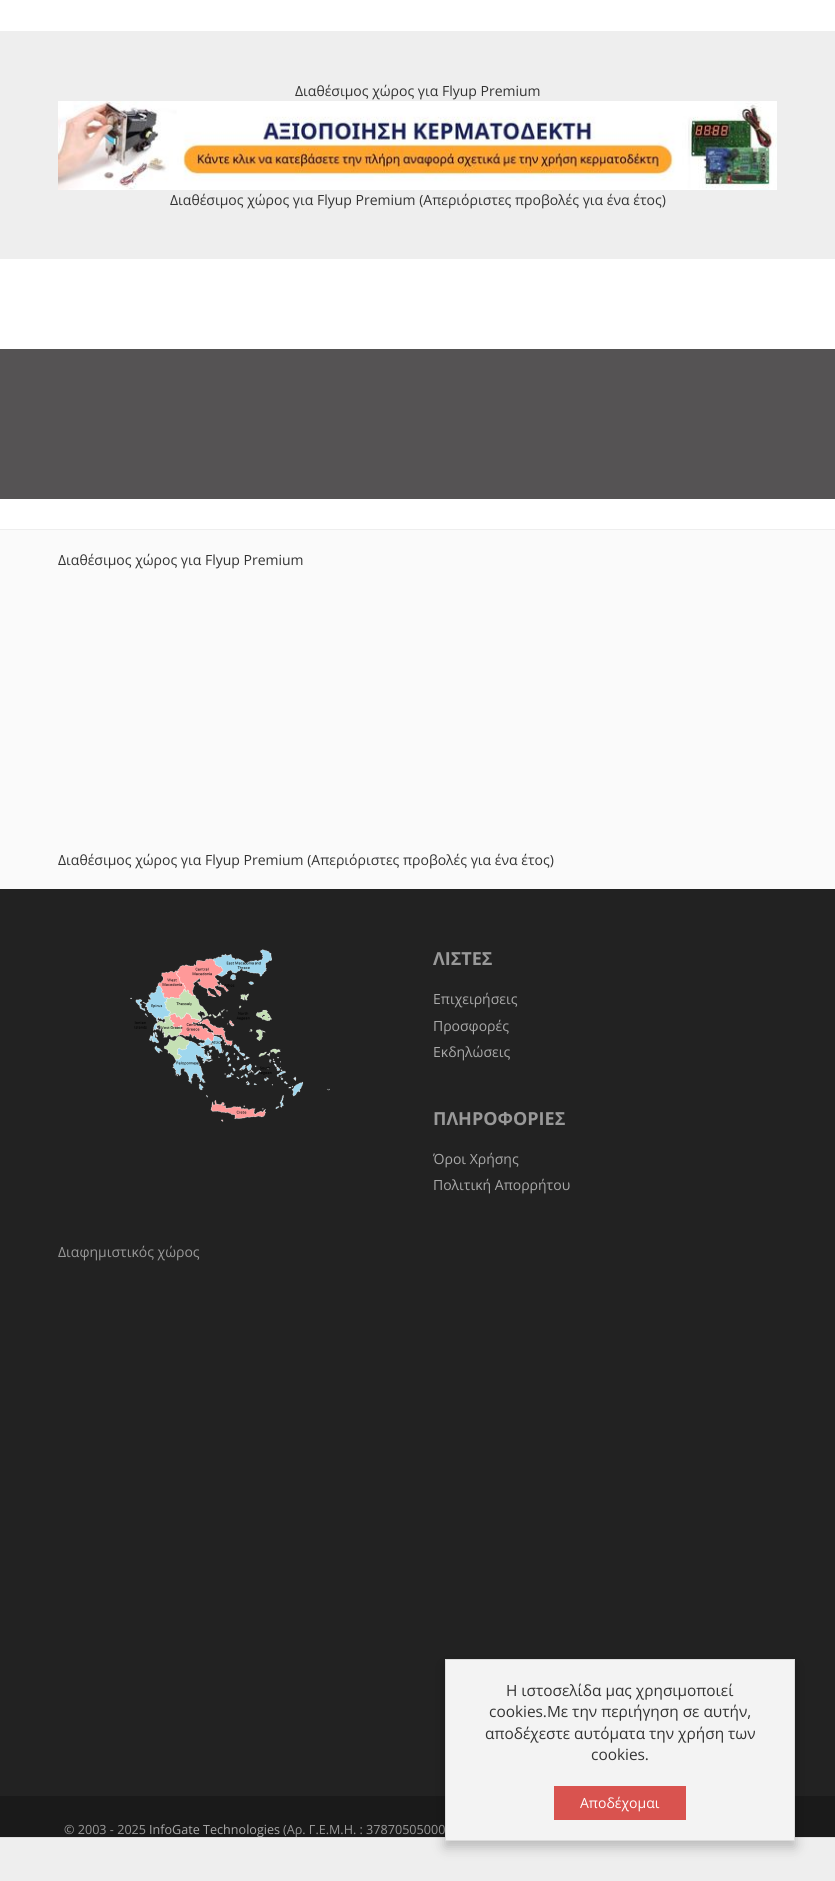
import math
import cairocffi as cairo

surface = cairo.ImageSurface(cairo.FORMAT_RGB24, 835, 1881)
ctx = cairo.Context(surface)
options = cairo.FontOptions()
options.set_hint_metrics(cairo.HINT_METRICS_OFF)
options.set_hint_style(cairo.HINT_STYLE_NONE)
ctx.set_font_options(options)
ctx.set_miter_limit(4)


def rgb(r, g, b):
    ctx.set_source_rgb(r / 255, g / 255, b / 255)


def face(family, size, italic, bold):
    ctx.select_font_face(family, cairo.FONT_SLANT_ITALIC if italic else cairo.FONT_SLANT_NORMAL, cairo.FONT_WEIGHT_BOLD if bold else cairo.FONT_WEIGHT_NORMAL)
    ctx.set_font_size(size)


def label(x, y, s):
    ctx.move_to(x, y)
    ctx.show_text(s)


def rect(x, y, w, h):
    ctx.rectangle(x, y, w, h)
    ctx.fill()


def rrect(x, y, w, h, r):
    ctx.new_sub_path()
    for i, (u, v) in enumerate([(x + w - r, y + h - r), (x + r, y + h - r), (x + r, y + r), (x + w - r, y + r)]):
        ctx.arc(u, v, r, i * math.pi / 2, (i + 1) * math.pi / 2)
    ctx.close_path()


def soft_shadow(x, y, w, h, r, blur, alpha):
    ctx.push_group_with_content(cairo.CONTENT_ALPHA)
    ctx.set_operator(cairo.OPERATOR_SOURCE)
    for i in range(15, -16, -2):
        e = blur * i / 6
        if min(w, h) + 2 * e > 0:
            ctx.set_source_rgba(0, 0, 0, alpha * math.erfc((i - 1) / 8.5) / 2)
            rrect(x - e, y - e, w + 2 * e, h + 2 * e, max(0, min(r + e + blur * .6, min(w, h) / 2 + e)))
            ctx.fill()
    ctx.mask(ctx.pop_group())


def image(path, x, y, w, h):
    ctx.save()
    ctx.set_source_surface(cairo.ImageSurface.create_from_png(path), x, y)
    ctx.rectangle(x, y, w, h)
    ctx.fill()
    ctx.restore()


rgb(255, 255, 255)
ctx.paint()
rgb(238, 238, 238)
rect(0, 31, 835, 228)
face('Open Sans', 14, 0, 0)
rgb(51, 51, 51)
label(295, 96, 'Διαθέσιμος χώρος για Flyup Premium')
image('image0.png', 58, 101, 719, 89)
label(170, 205, 'Διαθέσιμος χώρος για Flyup Premium (Απεριόριστες προβολές για ένα έτος)')
rgb(85, 83, 84)
rect(0, 349, 835, 150)
rgb(250, 250, 250)
rect(0, 530, 835, 359)
rgb(238, 238, 238)
rect(0, 529, 835, 1)
rgb(51, 51, 51)
label(58, 565, 'Διαθέσιμος χώρος για Flyup Premium')
label(58, 865, 'Διαθέσιμος χώρος για Flyup Premium (Απεριόριστες προβολές για ένα έτος)')
rgb(34, 34, 34)
rect(0, 889, 835, 907)
image('image1.png', 130, 949, 200, 173)
face('Open Sans', 18, 0, 1)
rgb(153, 153, 153)
label(433, 965, 'ΛΙΣΤΕΣ')
face('Open Sans', 14, 0, 0)
rgb(170, 170, 170)
label(433, 1004, 'Επιχειρήσεις')
label(433, 1031, 'Προσφορές')
label(433, 1057, 'Εκδηλώσεις')
face('Open Sans', 18, 0, 1)
rgb(153, 153, 153)
label(433, 1125, 'ΠΛΗΡΟΦΟΡΙΕΣ')
face('Open Sans', 14, 0, 0)
rgb(170, 170, 170)
label(433, 1164, 'Όροι Χρήσης')
label(433, 1190, 'Πολιτική Απορρήτου')
rgb(153, 153, 153)
label(58, 1257, 'Διαφημιστικός χώρος')
rgb(26, 26, 26)
rect(0, 1796, 835, 41)
face('Open Sans', 12.6, 0, 0)
rgb(153, 153, 153)
label(64, 1834, '© 2003 - 2025')
rgb(170, 170, 170)
label(149, 1834, 'InfoGate Technologies')
rgb(153, 153, 153)
label(283, 1834, '(Αρ. Γ.Ε.Μ.Η. : 37870505000')
rgb(238, 238, 238)
rect(0, 1838, 835, 43)
rgb(221, 221, 221)
rect(0, 1837, 835, 1)
rgb(0, 0, 0)
soft_shadow(445, 1665, 350, 182, 0, 6.5, 0.23)
rgb(243, 243, 243)
ctx.rectangle(445.5, 1659.5, 349, 181)
ctx.fill_preserve()
rgb(221, 221, 221)
ctx.set_line_width(1)
ctx.stroke()
face('Open Sans', 15.4, 0, 0)
rgb(51, 51, 51)
label(506, 1696, 'Η ιστοσελίδα μας χρησιμοποιεί')
label(489, 1717, 'cookies.Με την περιήγηση σε αυτήν,')
label(485, 1739, 'αποδέχεστε αυτόματα την χρήση των')
label(591, 1760, 'cookies.')
rgb(217, 83, 79)
rect(554, 1786, 132, 34)
face('Open Sans', 14, 0, 0)
rgb(255, 255, 255)
label(580, 1808, 'Αποδέχομαι')
surface.write_to_png('render.png')
